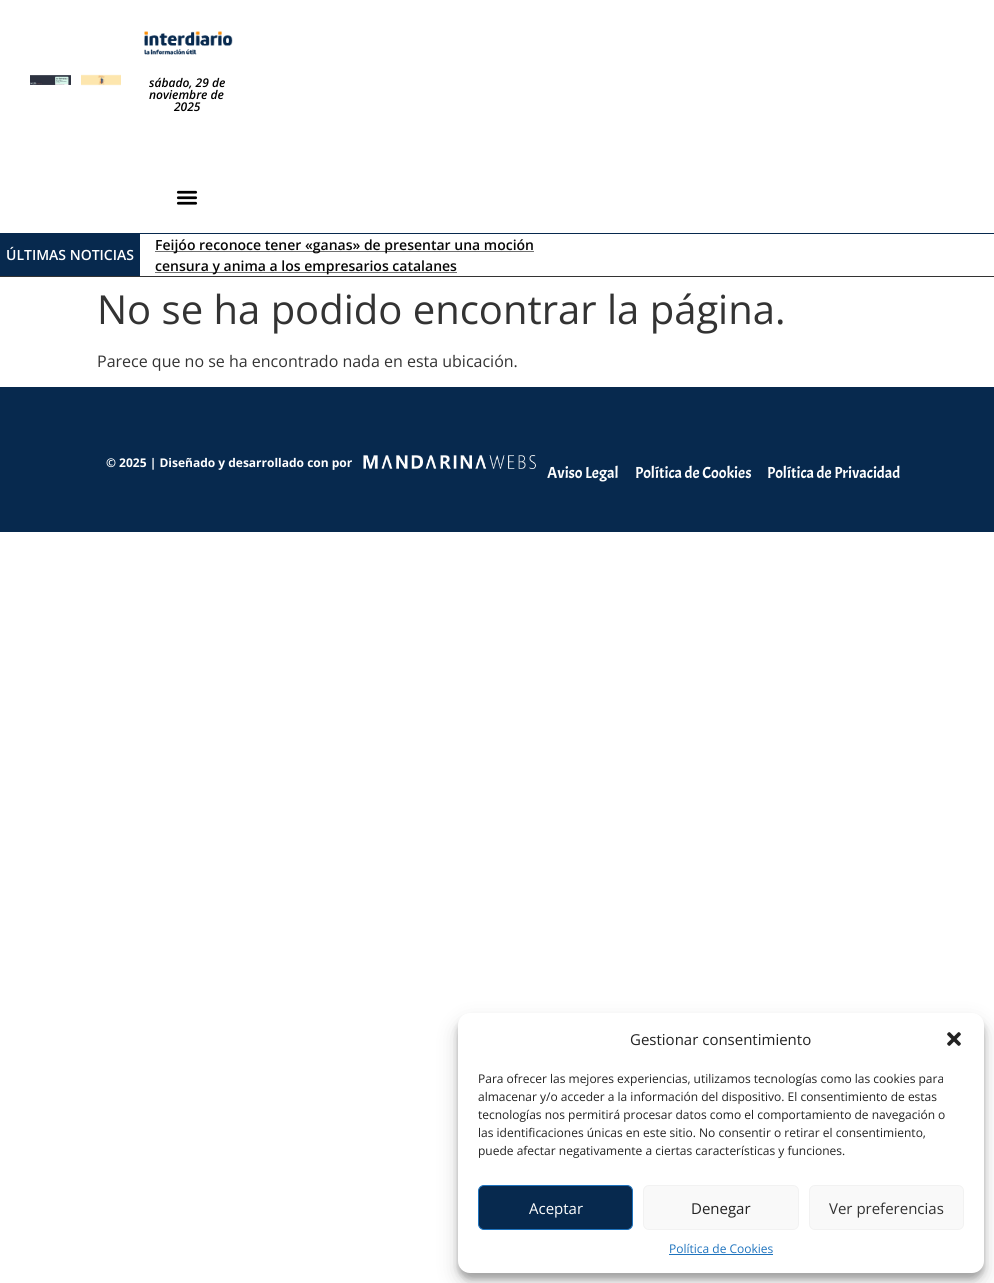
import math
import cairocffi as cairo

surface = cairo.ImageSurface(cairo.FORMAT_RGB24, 994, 1283)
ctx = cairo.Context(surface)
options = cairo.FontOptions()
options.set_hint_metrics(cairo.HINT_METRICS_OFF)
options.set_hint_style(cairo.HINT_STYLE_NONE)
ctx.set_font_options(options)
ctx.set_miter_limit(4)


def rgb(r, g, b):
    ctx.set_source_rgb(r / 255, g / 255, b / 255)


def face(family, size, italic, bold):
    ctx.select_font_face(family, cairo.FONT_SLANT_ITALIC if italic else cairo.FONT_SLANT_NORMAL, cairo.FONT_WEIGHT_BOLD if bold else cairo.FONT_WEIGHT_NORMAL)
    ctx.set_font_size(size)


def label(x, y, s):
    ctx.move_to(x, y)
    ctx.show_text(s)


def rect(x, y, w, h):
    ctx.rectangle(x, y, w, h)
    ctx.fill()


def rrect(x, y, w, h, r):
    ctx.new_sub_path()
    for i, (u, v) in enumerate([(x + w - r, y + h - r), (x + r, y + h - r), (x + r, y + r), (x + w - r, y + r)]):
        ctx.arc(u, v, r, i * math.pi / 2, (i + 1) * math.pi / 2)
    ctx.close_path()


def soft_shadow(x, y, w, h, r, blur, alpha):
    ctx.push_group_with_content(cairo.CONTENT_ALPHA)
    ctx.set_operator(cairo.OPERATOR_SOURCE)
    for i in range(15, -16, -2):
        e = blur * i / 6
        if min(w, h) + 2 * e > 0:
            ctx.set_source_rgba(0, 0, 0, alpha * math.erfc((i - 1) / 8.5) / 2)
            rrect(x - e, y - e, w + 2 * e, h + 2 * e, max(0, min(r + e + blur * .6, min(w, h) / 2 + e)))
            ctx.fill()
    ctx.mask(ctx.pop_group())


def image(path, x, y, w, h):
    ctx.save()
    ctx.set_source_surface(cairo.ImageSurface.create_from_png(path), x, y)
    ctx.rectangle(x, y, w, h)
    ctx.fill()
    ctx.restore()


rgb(255, 255, 255)
ctx.paint()
image('image0.png', 30, 75, 41, 10)
image('image1.png', 81, 74, 40, 12)
image('image2.png', 144, 31, 89, 24)
face('Open Sans SemiBold', 12, 1, 0)
rgb(0, 0, 0)
label(149, 87, 'sábado, 29 de')
label(149, 99, 'noviembre de')
label(174, 111, '2025')
rgb(7, 41, 78)
rect(0, 233, 994, 1)
image('image3.png', 176, 190, 22, 15)
rgb(51, 51, 51)
rect(0, 276, 994, 1)
rgb(7, 41, 78)
rect(0, 234, 140, 42)
face('Open Sans SemiBold', 14, 0, 0)
rgb(255, 255, 255)
label(6, 260, 'ÚLTIMAS NOTICIAS')
rgb(112, 112, 112)
rect(155, 251, 379, 1)
rgb(7, 7, 7)
label(155, 250, 'Feijóo reconoce tener «ganas» de presentar una moción')
rgb(112, 112, 112)
rect(155, 272, 302, 1)
rgb(7, 7, 7)
label(155, 271, 'censura y anima a los empresarios catalanes')
face('Open Sans', 40, 0, 0)
rgb(51, 51, 51)
label(97, 324, 'No se ha podido encontrar la página.')
face('Open Sans', 16, 0, 0)
label(97, 367, 'Parece que no se ha encontrado nada en esta ubicación.')
rgb(7, 41, 78)
rect(0, 387, 994, 145)
face('Open Sans', 12, 0, 1)
rgb(255, 255, 255)
label(106, 467, '© 2025 | Diseñado y desarrollado con por')
image('image4.png', 363, 455, 173, 14)
face('Acme', 16, 0, 0)
label(547, 478, 'Aviso Legal')
label(635, 478, 'Política de Cookies')
label(767, 478, 'Política de Privacidad')
rgb(0, 0, 0)
soft_shadow(458, 1019, 526, 260, 12, 3, 0.23)
soft_shadow(458, 1023, 526, 260, 12, 10, 0.19)
rgb(255, 255, 255)
rrect(458, 1013, 526, 260, 12)
ctx.fill()
face('Open Sans', 15, 0, 0)
rgb(34, 34, 34)
label(630, 1045, 'Gestionar consentimiento')
image('image5.png', 947, 1032, 14, 14)
face('Open Sans', 12, 0, 0)
label(478, 1083, 'Para ofrecer las mejores experiencias, utilizamos tecnologías como las cookies para')
label(478, 1101, 'almacenar y/o acceder a la información del dispositivo. El consentimiento de estas')
label(478, 1119, 'tecnologías nos permitirá procesar datos como el comportamiento de navegación o')
label(478, 1137, 'las identificaciones únicas en este sitio. No consentir o retirar el consentimiento,')
label(478, 1155, 'puede afectar negativamente a ciertas características y funciones.')
rgb(7, 41, 78)
rrect(478.5, 1185.5, 154, 44, 5.5)
ctx.fill_preserve()
rgb(30, 115, 190)
ctx.set_line_width(1)
ctx.stroke()
face('Open Sans', 15, 0, 0)
rgb(255, 255, 255)
label(529, 1214, 'Aceptar')
rgb(249, 249, 249)
rrect(643.5, 1185.5, 155, 44, 5.5)
ctx.fill_preserve()
rgb(242, 242, 242)
ctx.stroke()
rgb(34, 34, 34)
label(691, 1214, 'Denegar')
rgb(249, 249, 249)
rrect(809.5, 1185.5, 154, 44, 5.5)
ctx.fill_preserve()
rgb(242, 242, 242)
ctx.stroke()
rgb(51, 51, 51)
label(829, 1214, 'Ver preferencias')
face('Open Sans', 12, 0, 0)
rgb(30, 115, 190)
label(669, 1253, 'Política de Cookies')
rect(669, 1254, 104, 1)
surface.write_to_png('render.png')
